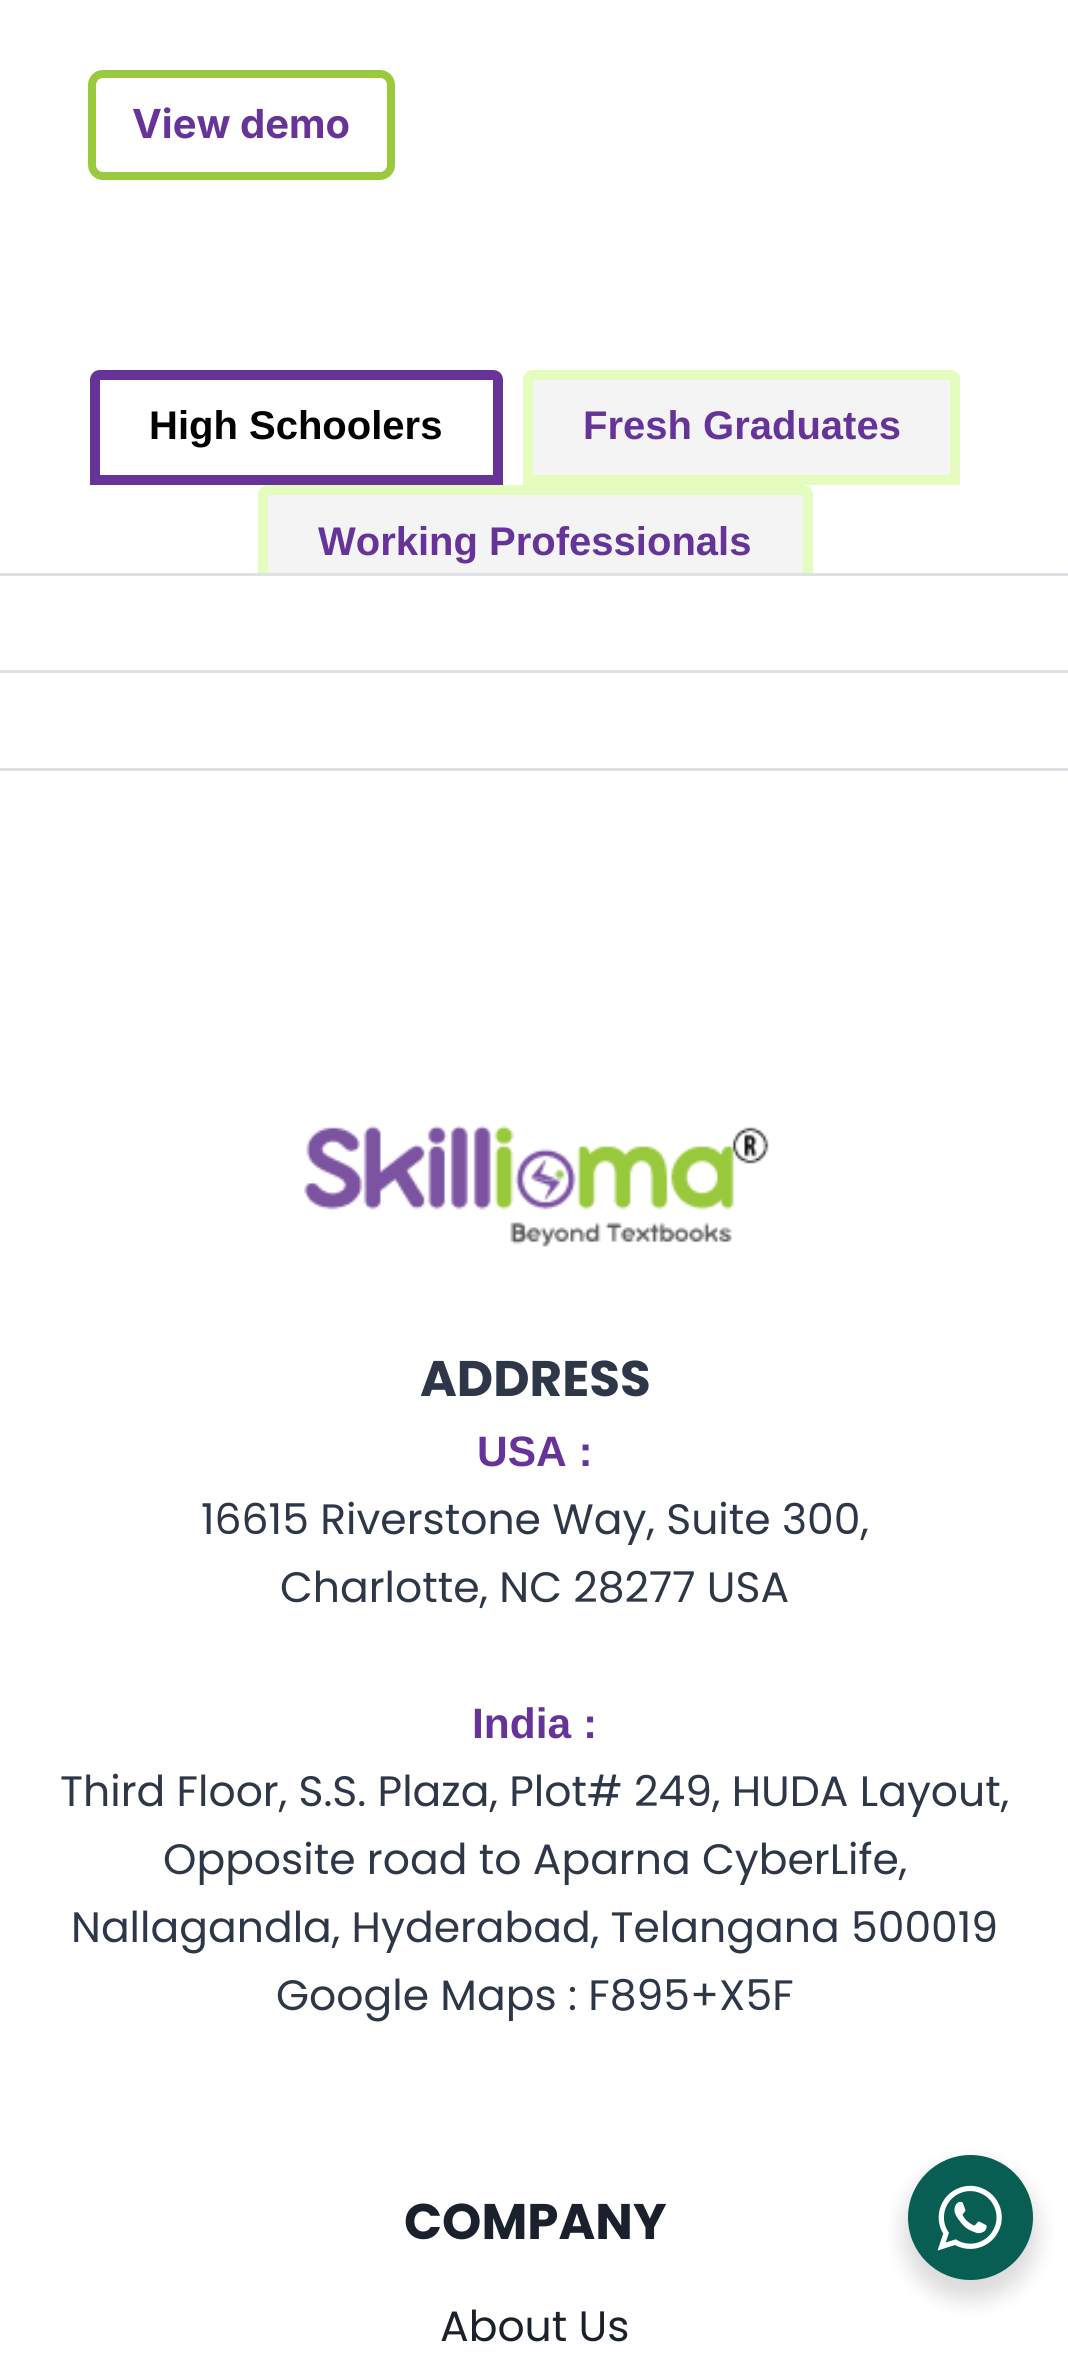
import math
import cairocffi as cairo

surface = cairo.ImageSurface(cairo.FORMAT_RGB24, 1068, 2379)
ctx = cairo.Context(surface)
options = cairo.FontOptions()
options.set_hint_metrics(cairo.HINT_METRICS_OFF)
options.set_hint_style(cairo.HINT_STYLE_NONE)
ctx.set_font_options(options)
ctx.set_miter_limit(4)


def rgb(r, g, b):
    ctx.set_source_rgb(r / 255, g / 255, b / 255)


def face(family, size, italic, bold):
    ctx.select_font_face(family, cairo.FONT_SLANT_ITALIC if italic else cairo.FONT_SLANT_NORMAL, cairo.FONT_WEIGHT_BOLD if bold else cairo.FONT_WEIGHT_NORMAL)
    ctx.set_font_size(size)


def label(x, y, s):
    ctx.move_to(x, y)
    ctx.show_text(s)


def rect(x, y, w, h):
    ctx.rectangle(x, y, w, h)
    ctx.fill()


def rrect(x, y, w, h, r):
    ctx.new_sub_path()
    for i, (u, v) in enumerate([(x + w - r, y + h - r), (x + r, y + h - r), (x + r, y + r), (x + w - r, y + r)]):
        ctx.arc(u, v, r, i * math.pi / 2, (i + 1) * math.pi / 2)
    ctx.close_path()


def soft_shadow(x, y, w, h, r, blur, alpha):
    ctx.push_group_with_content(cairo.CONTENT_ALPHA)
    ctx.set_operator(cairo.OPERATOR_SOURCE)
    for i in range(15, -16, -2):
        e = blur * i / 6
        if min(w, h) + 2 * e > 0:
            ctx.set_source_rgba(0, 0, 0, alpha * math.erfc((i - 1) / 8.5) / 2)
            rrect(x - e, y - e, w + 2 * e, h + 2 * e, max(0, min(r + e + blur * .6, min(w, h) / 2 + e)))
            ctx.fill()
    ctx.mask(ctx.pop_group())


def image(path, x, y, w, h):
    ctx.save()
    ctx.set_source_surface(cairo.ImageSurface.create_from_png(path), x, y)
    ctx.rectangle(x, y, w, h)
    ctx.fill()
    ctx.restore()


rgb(255, 255, 255)
ctx.paint()
rrect(92, 74, 299, 102, 11)
rgb(153, 202, 61)
ctx.set_line_width(8)
ctx.stroke()
face('Inter', 40, 0, 1)
rgb(102, 51, 153)
label(132, 138, 'View demo')
ctx.new_path()
ctx.move_to(100, 375)
ctx.line_to(493, 375)
ctx.curve_to(496, 375, 498, 377, 498, 380)
ctx.line_to(498, 480)
ctx.line_to(95, 480)
ctx.line_to(95, 380)
ctx.curve_to(95, 377, 97, 375, 100, 375)
ctx.close_path()
ctx.set_line_width(10)
ctx.stroke()
face('Liberation Sans', 40, 0, 1)
rgb(0, 0, 0)
label(149, 439, 'High Schoolers')
rgb(244, 244, 244)
ctx.new_path()
ctx.move_to(533, 375)
ctx.line_to(950, 375)
ctx.curve_to(953, 375, 955, 377, 955, 380)
ctx.line_to(955, 480)
ctx.line_to(528, 480)
ctx.line_to(528, 380)
ctx.curve_to(528, 377, 530, 375, 533, 375)
ctx.close_path()
ctx.fill_preserve()
rgb(228, 252, 190)
ctx.stroke()
rgb(102, 51, 153)
label(583, 439, 'Fresh Graduates')
rgb(244, 244, 244)
ctx.new_path()
ctx.move_to(268, 490)
ctx.line_to(803, 490)
ctx.curve_to(806, 490, 808, 492, 808, 495)
ctx.line_to(808, 598)
ctx.line_to(263, 598)
ctx.line_to(263, 495)
ctx.curve_to(263, 492, 265, 490, 268, 490)
ctx.close_path()
ctx.fill_preserve()
rgb(228, 252, 190)
ctx.stroke()
rgb(102, 51, 153)
label(318, 555, 'Working Professionals')
rgb(255, 255, 255)
ctx.new_path()
ctx.move_to(10, 575)
ctx.line_to(1060, 575)
ctx.curve_to(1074, 575, 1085, 585, 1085, 598)
ctx.line_to(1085, 650)
ctx.curve_to(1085, 664, 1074, 675, 1060, 675)
ctx.line_to(10, 675)
ctx.curve_to(-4, 675, -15, 664, -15, 650)
ctx.line_to(-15, 598)
ctx.curve_to(-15, 585, -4, 575, 10, 575)
ctx.close_path()
ctx.fill()
rgb(222, 226, 230)
rect(0, 573, 1068, 3)
rect(0, 670, 1068, 3)
rect(0, 768, 1068, 3)
image('image0.png', 304, 1125, 465, 122)
face('Poppins', 50, 0, 1)
rgb(45, 55, 72)
label(420, 1396, 'ADDRESS')
face('Liberation Sans', 42.5, 0, 1)
rgb(102, 51, 153)
label(477, 1466, 'USA :')
face('Poppins', 42.5, 0, 0)
rgb(45, 55, 72)
label(201, 1534, '16615 Riverstone Way, Suite 300,')
label(280, 1602, 'Charlotte, NC 28277 USA')
face('Liberation Sans', 42.5, 0, 1)
rgb(102, 51, 153)
label(472, 1738, 'India :')
face('Poppins', 42.5, 0, 0)
rgb(45, 55, 72)
label(60, 1806, 'Third Floor, S.S. Plaza, Plot# 249, HUDA Layout,')
label(163, 1874, 'Opposite road to Aparna CyberLife,')
label(71, 1942, 'Nallagandla, Hyderabad, Telangana 500019')
label(276, 2010, 'Google Maps : F895+X5F')
face('Poppins', 50, 0, 1)
rgb(26, 32, 44)
label(404, 2239, 'COMPANY')
face('Poppins', 42.5, 0, 0)
label(440, 2341, 'About Us')
rgb(0, 0, 0)
soft_shadow(903, 2165, 135, 135, 67.5, 10, 0.14)
rgb(9, 94, 84)
ctx.arc(970.5, 2217.5, 62.5, 0, 2 * math.pi)
ctx.fill()
image('image1.png', 937, 2185, 65, 66)
surface.write_to_png('render.png')
